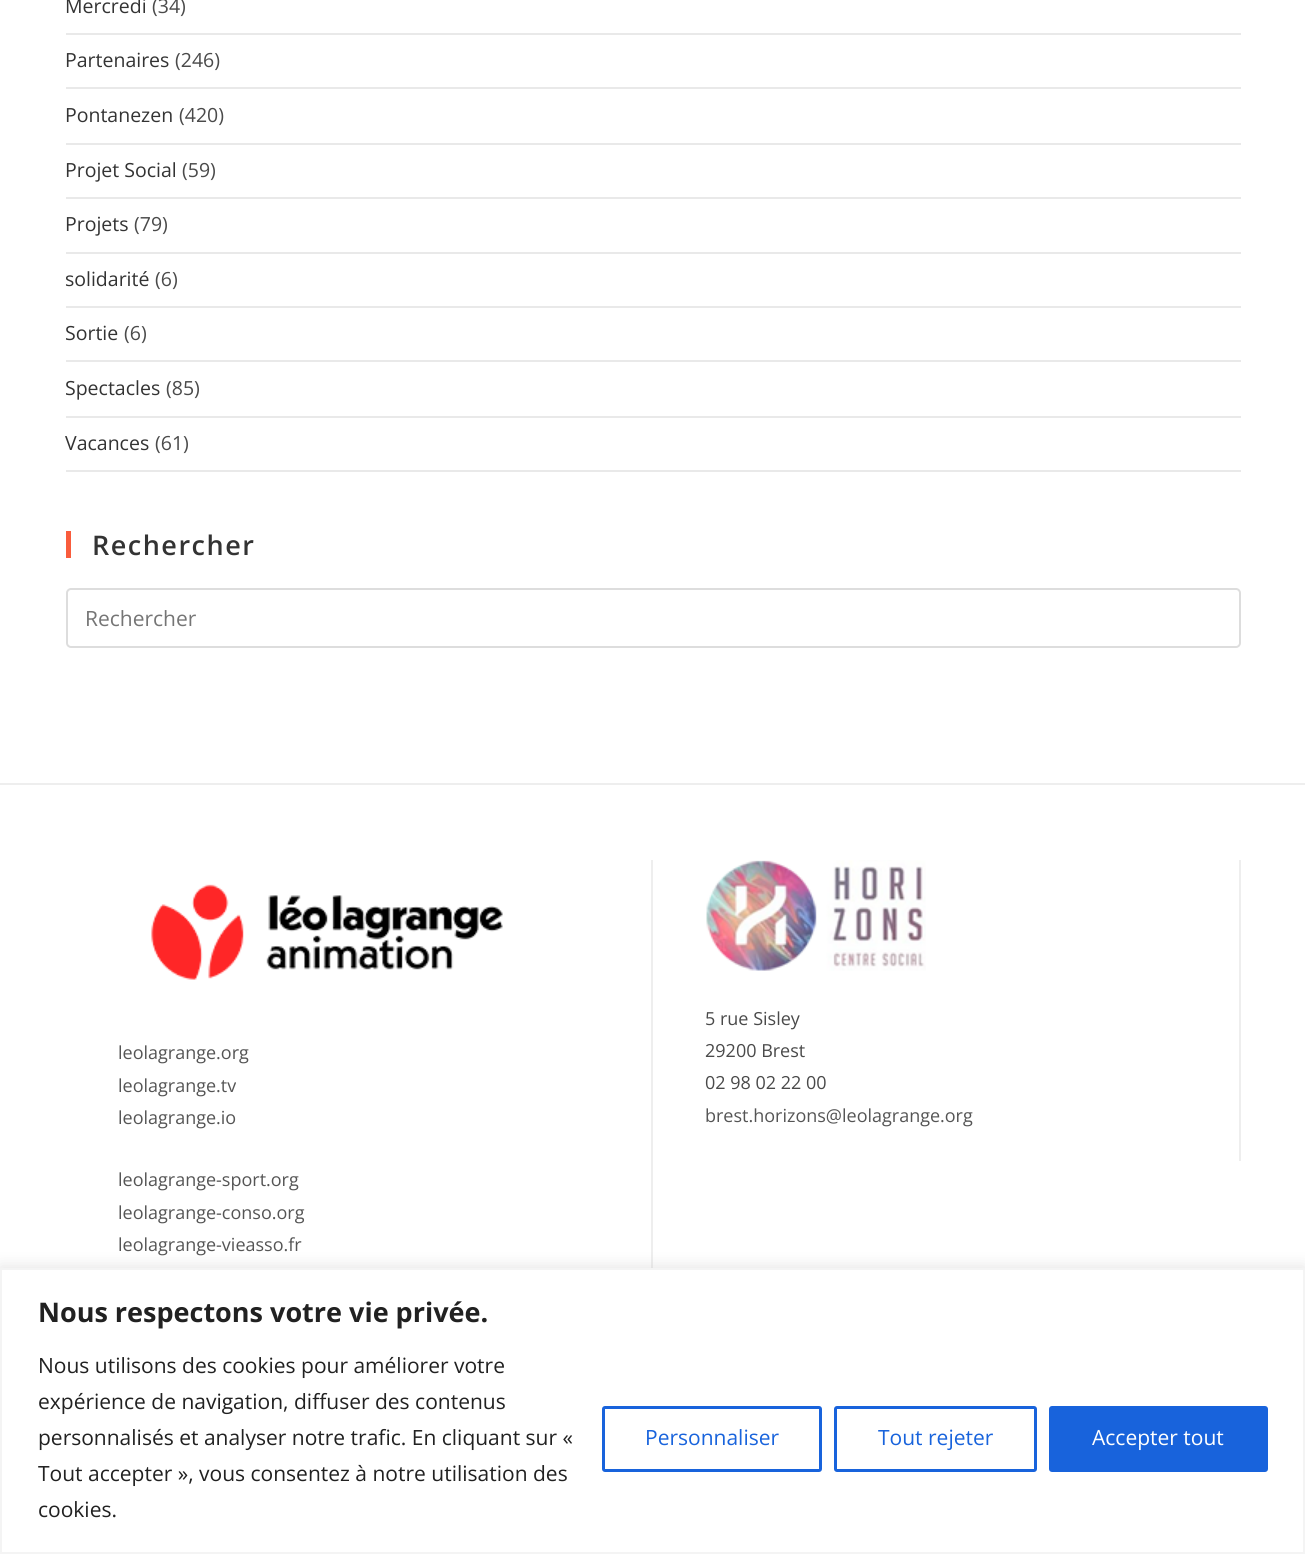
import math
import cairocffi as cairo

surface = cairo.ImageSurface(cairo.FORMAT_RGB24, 1305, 1554)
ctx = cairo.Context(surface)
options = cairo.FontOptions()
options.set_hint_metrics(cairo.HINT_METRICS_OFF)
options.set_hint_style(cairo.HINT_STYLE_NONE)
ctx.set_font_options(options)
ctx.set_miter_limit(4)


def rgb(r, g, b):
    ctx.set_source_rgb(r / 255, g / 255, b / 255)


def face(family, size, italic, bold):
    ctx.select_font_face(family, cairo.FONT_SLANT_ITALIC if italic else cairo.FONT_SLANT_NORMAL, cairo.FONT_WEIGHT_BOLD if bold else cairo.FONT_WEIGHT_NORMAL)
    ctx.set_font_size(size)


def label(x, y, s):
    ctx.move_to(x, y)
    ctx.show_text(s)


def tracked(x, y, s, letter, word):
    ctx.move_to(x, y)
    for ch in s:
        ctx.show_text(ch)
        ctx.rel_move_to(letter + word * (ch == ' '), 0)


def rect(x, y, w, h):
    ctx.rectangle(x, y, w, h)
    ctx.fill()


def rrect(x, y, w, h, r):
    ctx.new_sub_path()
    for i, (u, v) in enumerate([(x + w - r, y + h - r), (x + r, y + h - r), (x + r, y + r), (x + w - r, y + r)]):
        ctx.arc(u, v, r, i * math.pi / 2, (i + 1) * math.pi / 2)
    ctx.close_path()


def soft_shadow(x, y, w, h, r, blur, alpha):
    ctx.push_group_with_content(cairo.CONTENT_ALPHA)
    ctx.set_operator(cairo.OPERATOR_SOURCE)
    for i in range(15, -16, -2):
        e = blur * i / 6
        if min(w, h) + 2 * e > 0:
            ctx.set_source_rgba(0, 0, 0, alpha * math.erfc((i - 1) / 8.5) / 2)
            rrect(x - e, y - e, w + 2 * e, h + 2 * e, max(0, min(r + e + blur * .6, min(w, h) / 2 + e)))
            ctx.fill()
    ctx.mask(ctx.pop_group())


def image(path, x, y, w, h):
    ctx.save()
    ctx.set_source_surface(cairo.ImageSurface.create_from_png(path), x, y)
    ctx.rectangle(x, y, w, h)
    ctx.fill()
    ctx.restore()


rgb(255, 255, 255)
ctx.paint()
rgb(233, 233, 233)
rect(66, 33, 1175, 2)
face('Open Sans', 19.5, 0, 0)
rgb(51, 51, 51)
label(65, 13, 'Mercredi')
rgb(74, 74, 74)
label(152, 13, '(34)')
rgb(233, 233, 233)
rect(66, 87, 1175, 2)
rgb(51, 51, 51)
label(65, 67, 'Partenaires')
rgb(74, 74, 74)
label(175, 67, '(246)')
rgb(233, 233, 233)
rect(66, 143, 1175, 2)
rgb(51, 51, 51)
label(65, 122, 'Pontanezen')
rgb(74, 74, 74)
label(179, 122, '(420)')
rgb(233, 233, 233)
rect(66, 197, 1175, 2)
rgb(51, 51, 51)
label(65, 177, 'Projet Social')
rgb(74, 74, 74)
label(182, 177, '(59)')
rgb(233, 233, 233)
rect(66, 252, 1175, 2)
rgb(51, 51, 51)
label(65, 231, 'Projets')
rgb(74, 74, 74)
label(134, 231, '(79)')
rgb(233, 233, 233)
rect(66, 306, 1175, 2)
rgb(51, 51, 51)
label(65, 286, 'solidarité')
rgb(74, 74, 74)
label(155, 286, '(6)')
rgb(233, 233, 233)
rect(66, 360, 1175, 2)
rgb(51, 51, 51)
label(65, 340, 'Sortie')
rgb(74, 74, 74)
label(124, 340, '(6)')
rgb(233, 233, 233)
rect(66, 416, 1175, 2)
rgb(51, 51, 51)
label(65, 395, 'Spectacles')
rgb(74, 74, 74)
label(166, 395, '(85)')
rgb(233, 233, 233)
rect(66, 470, 1175, 2)
rgb(51, 51, 51)
label(65, 450, 'Vacances')
rgb(74, 74, 74)
label(155, 450, '(61)')
rgb(249, 92, 60)
rect(66, 531, 5, 27)
face('Open Sans SemiBold', 27, 0, 0)
rgb(51, 51, 51)
tracked(92, 555, 'Rechercher', 1.5, 0)
rrect(67, 589, 1173, 58, 4)
rgb(221, 221, 221)
ctx.stroke()
face('Open Sans', 21, 0, 0)
rgb(117, 117, 117)
label(85, 626, 'Rechercher')
rgb(238, 238, 238)
rect(0, 783, 1305, 2)
rect(651, 860, 2, 408)
image('image0.png', 151, 884, 352, 96)
face('Open Sans', 18, 0, 0)
rgb(85, 85, 85)
label(118, 1059, 'leolagrange.org')
label(118, 1092, 'leolagrange.tv')
label(118, 1124, 'leolagrange.io')
label(118, 1186, 'leolagrange-sport.org')
label(118, 1219, 'leolagrange-conso.org')
label(118, 1251, 'leolagrange-vieasso.fr')
rgb(238, 238, 238)
rect(1239, 860, 2, 301)
image('image1.png', 706, 860, 220, 111)
rgb(74, 74, 74)
label(705, 1025, '5 rue Sisley')
label(705, 1057, '29200 Brest')
label(705, 1089, '02 98 02 22 00')
rgb(85, 85, 85)
label(705, 1122, 'brest.horizons@leolagrange.org')
rgb(172, 171, 171)
soft_shadow(0, 1266, 1305, 287, 0, 7.5, 0.3)
rgb(255, 255, 255)
ctx.rectangle(1, 1269, 1303, 284)
ctx.fill_preserve()
rgb(244, 244, 244)
ctx.stroke()
face('Open Sans', 27, 0, 1)
rgb(33, 33, 33)
label(38, 1322, 'Nous respectons votre vie privée.')
face('Open Sans', 21, 0, 0)
label(38, 1373, 'Nous utilisons des cookies pour améliorer votre')
label(38, 1409, 'expérience de navigation, diffuser des contenus')
label(38, 1445, 'personnalisés et analyser notre trafic. En cliquant sur «')
label(38, 1481, 'Tout accepter », vous consentez à notre utilisation des')
label(38, 1517, 'cookies.')
rrect(603.5, 1407.5, 217, 63, 1.5)
rgb(24, 99, 220)
ctx.set_line_width(3)
ctx.stroke()
label(645, 1445, 'Personnaliser')
rrect(835.5, 1407.5, 200, 63, 1.5)
ctx.stroke()
label(878, 1445, 'Tout rejeter')
rrect(1050.5, 1407.5, 216, 63, 1.5)
ctx.fill_preserve()
ctx.stroke()
rgb(255, 255, 255)
label(1092, 1445, 'Accepter tout')
surface.write_to_png('render.png')
